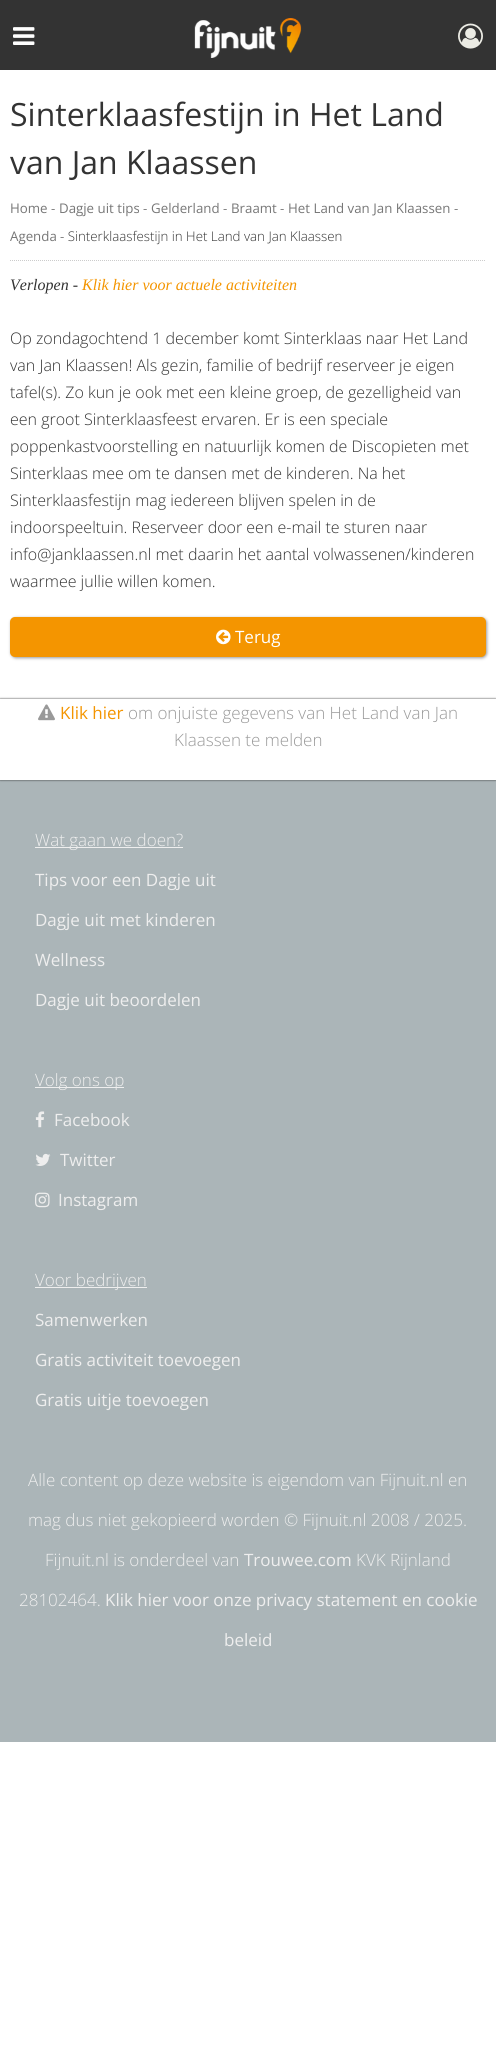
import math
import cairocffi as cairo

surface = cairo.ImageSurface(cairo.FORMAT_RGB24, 496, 2061)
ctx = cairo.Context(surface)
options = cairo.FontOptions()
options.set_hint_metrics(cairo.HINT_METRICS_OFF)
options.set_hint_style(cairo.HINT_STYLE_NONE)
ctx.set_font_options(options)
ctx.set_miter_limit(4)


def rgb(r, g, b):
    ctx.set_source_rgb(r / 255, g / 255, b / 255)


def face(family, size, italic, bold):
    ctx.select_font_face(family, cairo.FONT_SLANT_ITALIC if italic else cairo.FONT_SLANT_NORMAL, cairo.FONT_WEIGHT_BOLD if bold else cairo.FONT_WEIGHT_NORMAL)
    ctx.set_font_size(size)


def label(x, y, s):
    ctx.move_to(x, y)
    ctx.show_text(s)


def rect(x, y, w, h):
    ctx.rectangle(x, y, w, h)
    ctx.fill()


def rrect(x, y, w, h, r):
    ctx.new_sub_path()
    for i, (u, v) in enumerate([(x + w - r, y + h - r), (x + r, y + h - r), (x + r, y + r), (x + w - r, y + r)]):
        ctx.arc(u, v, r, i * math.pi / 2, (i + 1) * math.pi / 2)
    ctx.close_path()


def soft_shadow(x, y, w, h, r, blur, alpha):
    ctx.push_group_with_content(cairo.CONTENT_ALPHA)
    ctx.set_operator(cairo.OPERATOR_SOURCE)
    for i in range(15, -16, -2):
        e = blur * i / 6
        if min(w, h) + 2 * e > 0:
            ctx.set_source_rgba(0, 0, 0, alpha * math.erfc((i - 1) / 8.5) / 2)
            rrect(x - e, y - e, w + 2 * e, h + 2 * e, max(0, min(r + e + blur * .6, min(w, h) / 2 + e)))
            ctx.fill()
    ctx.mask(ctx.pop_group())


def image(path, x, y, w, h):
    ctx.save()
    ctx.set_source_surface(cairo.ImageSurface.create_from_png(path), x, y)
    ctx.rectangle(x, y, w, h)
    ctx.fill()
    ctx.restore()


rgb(255, 255, 255)
ctx.paint()
rgb(51, 51, 51)
rect(0, 0, 496, 70)
image('image0.png', 13, 27, 22, 18)
image('image1.png', 194, 18, 108, 40)
image('image2.png', 458, 23, 25, 26)
face('Open Sans', 32, 0, 0)
label(10, 126, 'Sinterklaasfestijn in Het Land')
label(10, 174, 'van Jan Klaassen')
ctx.new_path()
ctx.move_to(10, 260.5)
ctx.line_to(486, 260.5)
rgb(204, 204, 204)
ctx.set_line_width(1)
ctx.set_dash([1, 1])
ctx.stroke()
face('Open Sans', 13.3, 0, 0)
rgb(119, 119, 119)
label(10, 213, 'Home')
face('Open Sans Light', 13.3, 0, 0)
rgb(51, 51, 51)
label(51, 213, '-')
face('Open Sans', 13.3, 0, 0)
rgb(119, 119, 119)
label(59, 213, 'Dagje uit tips')
face('Open Sans Light', 13.3, 0, 0)
rgb(51, 51, 51)
label(143, 213, '-')
face('Open Sans', 13.3, 0, 0)
rgb(119, 119, 119)
label(151, 213, 'Gelderland')
face('Open Sans Light', 13.3, 0, 0)
rgb(51, 51, 51)
label(223, 213, '-')
face('Open Sans', 13.3, 0, 0)
rgb(119, 119, 119)
label(231, 213, 'Braamt')
face('Open Sans Light', 13.3, 0, 0)
rgb(51, 51, 51)
label(280, 213, '-')
face('Open Sans', 13.3, 0, 0)
rgb(119, 119, 119)
label(288, 213, 'Het Land van Jan Klaassen')
face('Open Sans Light', 13.3, 0, 0)
rgb(51, 51, 51)
label(454, 213, '-')
face('Open Sans', 13.3, 0, 0)
rgb(119, 119, 119)
label(10, 241, 'Agenda')
face('Open Sans Light', 13.3, 0, 0)
rgb(51, 51, 51)
label(60, 241, '- Sinterklaasfestijn in Het Land van Jan Klaassen')
face('Liberation Serif', 16, 1, 0)
label(10, 290, 'Verlopen -')
rgb(244, 149, 0)
label(82, 290, 'Klik hier voor actuele activiteiten')
face('Open Sans Light', 16, 0, 0)
rgb(51, 51, 51)
label(10, 344, 'Op zondagochtend 1 december komt Sinterklaas naar Het Land')
label(10, 371, 'van Jan Klaassen! Als gezin, familie of bedrijf reserveer je eigen')
label(10, 398, 'tafel(s). Zo kun je ook met een kleine groep, de gezelligheid van')
label(10, 425, 'een groot Sinterklaasfeest ervaren. Er is een speciale')
label(10, 452, 'poppenkastvoorstelling en natuurlijk komen de Discopieten met')
label(10, 479, 'Sinterklaas mee om te dansen met de kinderen. Na het')
label(10, 506, 'Sinterklaasfestijn mag iedereen blijven spelen in de')
label(10, 533, 'indoorspeeltuin. Reserveer door een e-mail te sturen naar')
label(10, 560, 'info@janklaassen.nl met daarin het aantal volwassenen/kinderen')
label(10, 587, 'waarmee jullie willen komen.')
rgb(153, 153, 153)
soft_shadow(11, 618, 476, 40, 5, 1.5, 1)
rgb(244, 149, 0)
rrect(10, 617, 476, 40, 5)
ctx.fill()
image('image3.png', 216, 629, 15, 16)
face('Open Sans', 17, 0, 0)
rgb(255, 255, 255)
label(235, 643, 'Terug')
rgb(171, 181, 184)
rect(0, 780, 496, 962)
ctx.save()
ctx.set_fill_rule(cairo.FILL_RULE_EVEN_ODD)
ctx.new_path()
ctx.move_to(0, 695)
ctx.line_to(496, 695)
ctx.line_to(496, 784)
ctx.line_to(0, 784)
ctx.close_path()
ctx.move_to(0, 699)
ctx.line_to(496, 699)
ctx.line_to(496, 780)
ctx.line_to(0, 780)
ctx.close_path()
ctx.clip()
rgb(51, 51, 51)
soft_shadow(0, 699, 496, 81, 0, 1, 1)
ctx.restore()
image('image4.png', 38, 704, 17, 17)
rgb(244, 149, 0)
label(60, 719, 'Klik hier')
face('Open Sans Light', 17, 0, 0)
rgb(153, 153, 153)
label(128, 719, 'om onjuiste gegevens van Het Land van Jan')
label(174, 746, 'Klaassen te melden')
rgb(238, 238, 238)
rect(35, 847, 148, 1)
label(35, 846, 'Wat gaan we doen?')
face('Open Sans', 17, 0, 0)
label(35, 886, 'Tips voor een Dagje uit')
label(35, 926, 'Dagje uit met kinderen')
label(35, 966, 'Wellness')
label(35, 1006, 'Dagje uit beoordelen')
rect(35, 1087, 89, 1)
face('Open Sans Light', 17, 0, 0)
label(35, 1086, 'Volg ons op')
image('image5.png', 35, 1111, 10, 17)
face('Open Sans', 17, 0, 0)
label(54, 1126, 'Facebook')
image('image6.png', 35, 1153, 16, 13)
label(60, 1166, 'Twitter')
image('image7.png', 35, 1192, 15, 16)
label(58, 1206, 'Instagram')
rect(35, 1287, 112, 1)
face('Open Sans Light', 17, 0, 0)
label(35, 1286, 'Voor bedrijven')
face('Open Sans', 17, 0, 0)
label(35, 1326, 'Samenwerken')
label(35, 1366, 'Gratis activiteit toevoegen')
label(35, 1406, 'Gratis uitje toevoegen')
face('Open Sans Light', 17, 0, 0)
label(28, 1486, 'Alle content op deze website is eigendom van Fijnuit.nl en')
label(28, 1526, 'mag dus niet gekopieerd worden © Fijnuit.nl 2008 / 2025.')
label(45, 1566, 'Fijnuit.nl is onderdeel van')
face('Open Sans', 17, 0, 0)
label(244, 1566, 'Trouwee.com')
face('Open Sans Light', 17, 0, 0)
label(356, 1566, 'KVK Rijnland')
label(19, 1606, '28102464.')
face('Open Sans', 17, 0, 0)
label(105, 1606, 'Klik hier voor onze privacy statement en cookie')
label(224, 1646, 'beleid')
surface.write_to_png('render.png')
